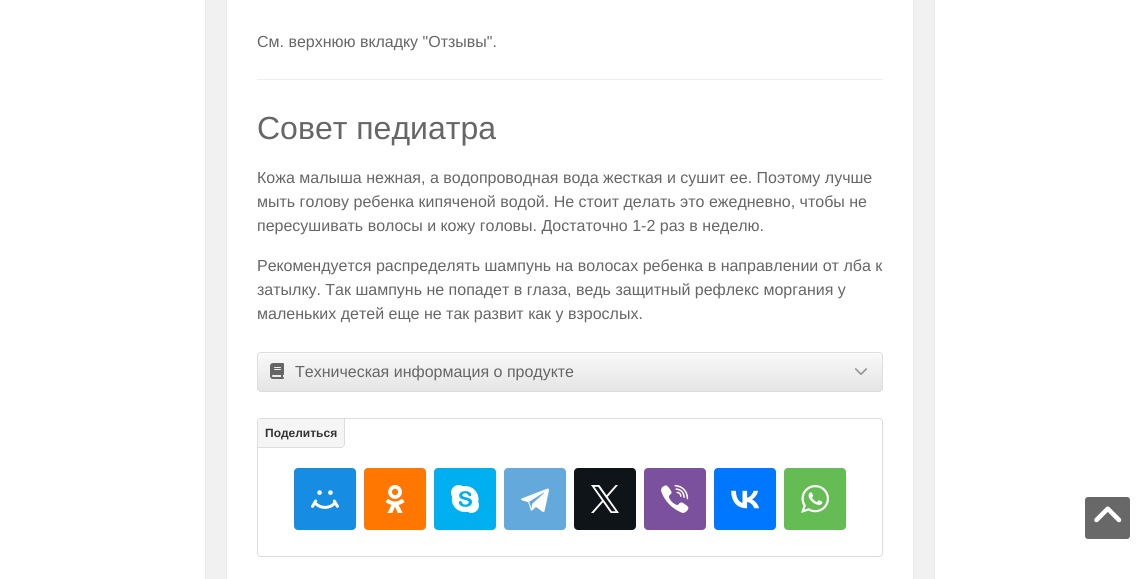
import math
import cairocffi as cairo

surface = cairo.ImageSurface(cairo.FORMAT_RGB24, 1140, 579)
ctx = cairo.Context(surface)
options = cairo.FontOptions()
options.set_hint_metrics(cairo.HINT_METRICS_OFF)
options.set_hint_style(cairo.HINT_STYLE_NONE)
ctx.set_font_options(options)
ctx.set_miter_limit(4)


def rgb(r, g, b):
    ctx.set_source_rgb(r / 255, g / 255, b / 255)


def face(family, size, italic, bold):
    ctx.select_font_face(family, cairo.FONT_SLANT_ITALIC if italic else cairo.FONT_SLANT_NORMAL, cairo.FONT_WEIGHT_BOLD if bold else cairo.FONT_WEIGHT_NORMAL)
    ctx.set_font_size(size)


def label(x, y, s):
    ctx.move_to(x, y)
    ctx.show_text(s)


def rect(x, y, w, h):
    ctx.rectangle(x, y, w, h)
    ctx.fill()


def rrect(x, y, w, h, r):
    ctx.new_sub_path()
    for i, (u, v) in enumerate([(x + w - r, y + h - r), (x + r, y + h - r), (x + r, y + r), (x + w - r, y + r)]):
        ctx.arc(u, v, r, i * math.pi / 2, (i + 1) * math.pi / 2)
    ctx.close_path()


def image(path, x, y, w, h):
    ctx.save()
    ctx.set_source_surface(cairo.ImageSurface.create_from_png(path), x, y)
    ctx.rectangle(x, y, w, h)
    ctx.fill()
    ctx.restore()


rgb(255, 255, 255)
ctx.paint()
rgb(235, 235, 235)
rect(934, 0, 1, 579)
rect(205, 0, 1, 579)
rgb(241, 241, 241)
rect(206, 0, 728, 579)
rgb(255, 255, 255)
ctx.rectangle(226.5, -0.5, 687, 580)
ctx.fill_preserve()
rgb(235, 235, 235)
ctx.set_line_width(1)
ctx.stroke()
face('Liberation Sans', 16, 0, 0)
rgb(102, 102, 102)
label(257, 47, 'См. верхнюю вкладку "Отзывы".')
rgb(238, 238, 238)
rect(257, 79, 626, 1)
face('Liberation Sans', 32, 0, 0)
rgb(102, 102, 102)
label(257, 139, 'Совет педиатра')
face('Liberation Sans', 16, 0, 0)
label(257, 183, 'Кожа малыша нежная, а водопроводная вода жесткая и сушит ее. Поэтому лучше')
label(257, 207, 'мыть голову ребенка кипяченой водой. Не стоит делать это ежедневно, чтобы не')
label(257, 231, 'пересушивать волосы и кожу головы. Достаточно 1-2 раз в неделю.')
label(257, 271, 'Рекомендуется распределять шампунь на волосах ребенка в направлении от лба к')
label(257, 295, 'затылку. Так шампунь не попадет в глаза, ведь защитный рефлекс моргания у')
label(257, 319, 'маленьких детей еще не так развит как у взрослых.')
ctx.save()
rrect(257, 352, 626, 40, 4)
ctx.clip()
gradient = cairo.LinearGradient(570, 353, 570, 391)
gradient.add_color_stop_rgba(0, 0.976, 0.976, 0.976, 1)
gradient.add_color_stop_rgba(1, 0.898, 0.898, 0.898, 1)
ctx.set_source(gradient)
rect(257, 353, 626, 38)
ctx.restore()
rgb(255, 255, 255)
ctx.new_path()
ctx.move_to(261, 354)
ctx.line_to(879, 354)
ctx.curve_to(881, 354, 882, 355, 882, 357)
ctx.line_to(882, 356)
ctx.curve_to(882, 354, 881, 353, 879, 353)
ctx.line_to(261, 353)
ctx.curve_to(259, 353, 258, 354, 258, 356)
ctx.line_to(258, 357)
ctx.curve_to(258, 355, 259, 354, 261, 354)
ctx.close_path()
ctx.fill()
rrect(257.5, 352.5, 625, 39, 3.5)
rgb(221, 221, 221)
ctx.stroke()
image('image0.png', 270, 363, 14, 16)
rgb(102, 102, 102)
label(295, 377, 'Техническая информация о продукте')
image('image1.png', 855, 368, 12, 7)
rrect(257.5, 418.5, 625, 138, 3.5)
rgb(221, 221, 221)
ctx.stroke()
ctx.save()
rrect(258, 419, 624, 137, 3)
ctx.clip()
rgb(245, 245, 245)
ctx.new_path()
ctx.move_to(261, 418)
ctx.line_to(345, 418)
ctx.line_to(345, 444)
ctx.curve_to(345, 446, 343, 448, 341, 448)
ctx.line_to(257, 448)
ctx.line_to(257, 422)
ctx.curve_to(257, 420, 259, 418, 261, 418)
ctx.close_path()
ctx.fill()
ctx.restore()
ctx.new_path()
ctx.move_to(345, 419)
ctx.line_to(345, 444)
ctx.curve_to(345, 446, 343, 448, 341, 448)
ctx.line_to(258, 448)
ctx.line_to(258, 447)
ctx.line_to(341, 447)
ctx.curve_to(343, 447, 344, 446, 344, 444)
ctx.line_to(344, 419)
ctx.close_path()
ctx.fill()
face('Liberation Sans', 12, 0, 1)
rgb(51, 51, 51)
label(265, 437, 'Поделиться')
rgb(22, 141, 226)
rrect(294, 468, 62, 62, 4)
ctx.fill()
image('image2.png', 311, 490, 28, 19)
rgb(255, 119, 0)
rrect(364, 468, 62, 62, 4)
ctx.fill()
image('image3.png', 385, 485, 20, 28)
rgb(0, 175, 240)
rrect(434, 468, 62, 62, 4)
ctx.fill()
image('image4.png', 451, 485, 28, 28)
rgb(100, 169, 220)
rrect(504, 468, 62, 62, 4)
ctx.fill()
image('image5.png', 521, 488, 28, 24)
rgb(15, 20, 25)
rrect(574, 468, 62, 62, 4)
ctx.fill()
image('image6.png', 591, 485, 28, 28)
rgb(123, 81, 157)
rrect(644, 468, 62, 62, 4)
ctx.fill()
image('image7.png', 661, 485, 28, 28)
rgb(0, 119, 255)
rrect(714, 468, 62, 62, 4)
ctx.fill()
image('image8.png', 731, 490, 28, 19)
rgb(101, 188, 84)
rrect(784, 468, 62, 62, 4)
ctx.fill()
image('image9.png', 801, 485, 28, 28)
rgb(104, 104, 104)
rrect(1085, 497, 45, 42, 3)
ctx.fill()
image('image10.png', 1094, 506, 28, 17)
surface.write_to_png('render.png')
